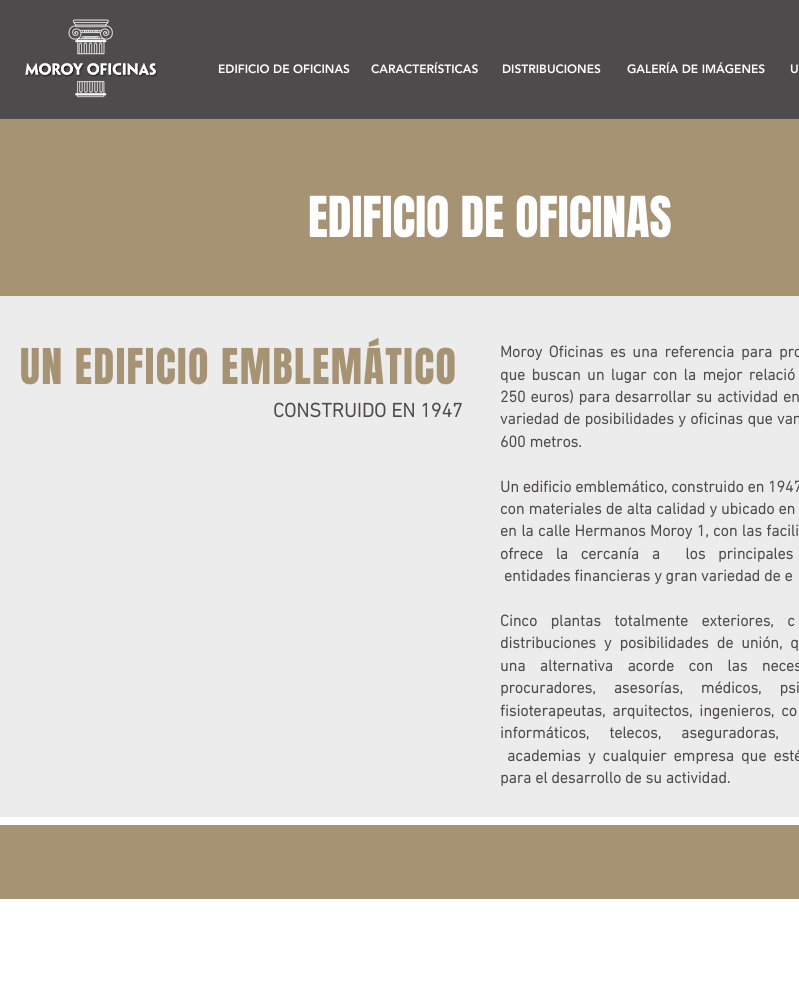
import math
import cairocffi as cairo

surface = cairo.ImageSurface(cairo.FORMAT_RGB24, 799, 1004)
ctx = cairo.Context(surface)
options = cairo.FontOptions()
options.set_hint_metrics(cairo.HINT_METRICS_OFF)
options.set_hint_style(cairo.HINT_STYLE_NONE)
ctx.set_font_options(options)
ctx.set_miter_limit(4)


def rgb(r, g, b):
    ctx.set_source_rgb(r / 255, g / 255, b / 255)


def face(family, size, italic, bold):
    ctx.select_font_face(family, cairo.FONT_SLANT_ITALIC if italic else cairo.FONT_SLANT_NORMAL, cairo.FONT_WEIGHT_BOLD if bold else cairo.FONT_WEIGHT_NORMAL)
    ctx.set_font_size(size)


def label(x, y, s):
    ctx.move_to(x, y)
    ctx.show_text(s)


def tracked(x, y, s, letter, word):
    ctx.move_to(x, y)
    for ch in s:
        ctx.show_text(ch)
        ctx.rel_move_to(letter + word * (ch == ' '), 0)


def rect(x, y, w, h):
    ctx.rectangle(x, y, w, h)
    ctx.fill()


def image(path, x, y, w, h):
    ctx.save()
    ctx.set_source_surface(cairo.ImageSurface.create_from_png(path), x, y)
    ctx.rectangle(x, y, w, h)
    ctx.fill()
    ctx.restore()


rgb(255, 255, 255)
ctx.paint()
rgb(77, 75, 75)
rect(0, 0, 799, 119)
image('image0.png', 25, 19, 133, 79)
face('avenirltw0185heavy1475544 Black', 12, 0, 0)
rgb(255, 255, 255)
label(218, 73, 'EDIFICIO DE OFICINAS')
label(371, 73, 'CARACTERÍSTICAS')
label(502, 73, 'DISTRIBUCIONES')
label(627, 73, 'GALERÍA DE IMÁGENES')
label(790, 73, 'U')
rgb(166, 147, 116)
rect(0, 119, 799, 177)
face('Anton', 48, 0, 0)
rgb(255, 255, 255)
label(308, 237, 'EDIFICIO DE OFICINAS')
rgb(237, 236, 236)
rect(0, 296, 799, 521)
face('Anton', 42, 0, 0)
rgb(166, 147, 116)
tracked(20, 384, 'UN EDIFICIO EMBLEMÁTICO', 1.4, 0)
face('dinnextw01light', 16, 0, 1)
rgb(77, 75, 75)
tracked(500, 357, 'Moroy Oficinas es una referencia para pro', 0, 2.75)
tracked(500, 380, 'que buscan un lugar con la mejor relació', 0, 2.5)
tracked(500, 402, '250 euros) para desarrollar su actividad en', 0, 1)
tracked(500, 424, 'variedad de posibilidades y oficinas que van', 0, 0.5)
label(500, 447, '600 metros.')
label(500, 492, 'Un edificio emblemático, construido en 1947')
tracked(500, 514, 'con materiales de alta calidad y ubicado en', 0, 0.25)
tracked(500, 536, 'en la calle Hermanos Moroy 1, con las facili', 0, 0.5)
tracked(500, 559, 'ofrece la cercanía a  los principales', 0, 8.75)
label(504, 581, 'entidades financieras y gran variedad de e')
tracked(500, 626, 'Cinco plantas totalmente exteriores, c', 0, 9.5)
tracked(500, 648, 'distribuciones y posibilidades de unión, q', 0, 4)
tracked(500, 671, 'una alternativa acorde con las neces', 0, 10.5)
tracked(500, 693, 'procuradores, asesorías, médicos, psi', 0, 14)
tracked(500, 716, 'fisioterapeutas, arquitectos, ingenieros, co', 0, 3)
tracked(500, 738, 'informáticos, telecos, aseguradoras,', 0, 16)
tracked(507, 761, 'academias y cualquier empresa que esté', 0, 3.25)
label(500, 783, 'para el desarrollo de su actividad.')
face('dinnextw01light', 20, 0, 1)
label(273, 417, 'CONSTRUIDO EN 1947')
rgb(166, 147, 116)
rect(0, 825, 799, 74)
surface.write_to_png('render.png')
